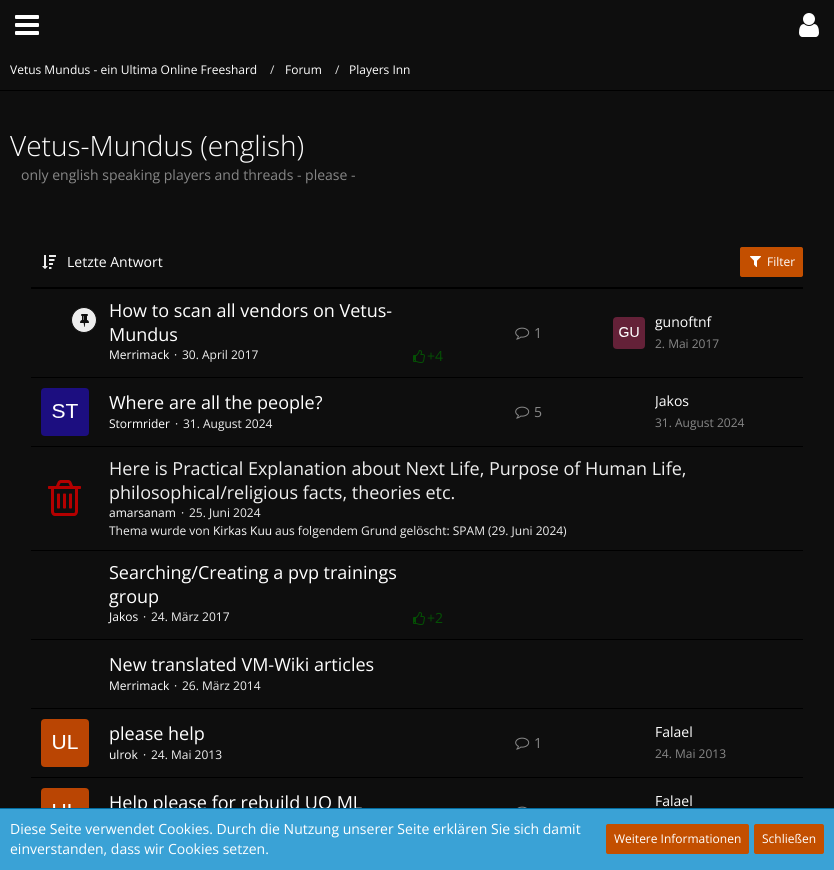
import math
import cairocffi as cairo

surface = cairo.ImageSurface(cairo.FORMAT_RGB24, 834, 870)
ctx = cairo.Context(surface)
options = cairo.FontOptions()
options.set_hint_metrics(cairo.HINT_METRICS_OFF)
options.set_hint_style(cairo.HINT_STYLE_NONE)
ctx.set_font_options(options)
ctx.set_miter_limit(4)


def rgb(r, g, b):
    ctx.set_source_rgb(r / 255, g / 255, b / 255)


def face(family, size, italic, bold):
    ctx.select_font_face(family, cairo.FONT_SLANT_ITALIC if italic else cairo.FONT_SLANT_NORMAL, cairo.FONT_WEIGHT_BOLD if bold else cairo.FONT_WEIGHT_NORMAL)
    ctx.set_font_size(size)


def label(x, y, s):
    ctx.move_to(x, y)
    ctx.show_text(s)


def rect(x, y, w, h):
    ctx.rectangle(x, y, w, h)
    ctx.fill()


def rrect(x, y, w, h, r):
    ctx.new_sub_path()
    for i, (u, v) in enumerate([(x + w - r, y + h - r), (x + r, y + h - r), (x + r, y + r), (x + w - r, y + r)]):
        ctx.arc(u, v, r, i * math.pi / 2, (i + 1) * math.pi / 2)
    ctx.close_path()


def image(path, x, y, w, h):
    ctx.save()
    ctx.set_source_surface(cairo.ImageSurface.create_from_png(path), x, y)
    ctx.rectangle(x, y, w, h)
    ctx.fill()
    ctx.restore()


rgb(14, 14, 14)
ctx.paint()
image('image0.png', 15, 15, 24, 20)
image('image1.png', 799, 13, 20, 24)
rgb(0, 0, 0)
rect(0, 90, 834, 1)
face('Open Sans', 12, 0, 0)
rgb(255, 255, 255)
label(10, 74, 'Vetus Mundus - ein Ultima Online Freeshard')
rgb(221, 221, 221)
label(270, 74, '/')
rgb(255, 255, 255)
label(285, 74, 'Forum')
rgb(221, 221, 221)
label(335, 74, '/')
rgb(255, 255, 255)
label(349, 74, 'Players Inn')
face('Open Sans Light', 28, 0, 0)
label(10, 156, 'Vetus-Mundus (english)')
face('Open Sans', 14, 0, 0)
rgb(135, 135, 135)
label(21, 180, 'only english speaking players and threads - please -')
rgb(0, 0, 0)
rect(31, 287, 772, 2)
image('image2.png', 42, 255, 14, 14)
rgb(255, 255, 255)
label(67, 267, 'Letzte Antwort')
rgb(195, 79, 0)
rrect(740, 247, 63, 30, 2)
ctx.fill()
image('image3.png', 750, 256, 11, 11)
face('Open Sans', 12, 0, 0)
rgb(255, 255, 255)
label(767, 266, 'Filter')
rgb(238, 238, 238)
ctx.new_path()
ctx.arc(84, 320, 12.5, 0, 2 * math.pi)
ctx.fill_preserve()
rgb(14, 14, 14)
ctx.set_line_width(1)
ctx.stroke()
image('image4.png', 80, 314, 9, 13)
face('Open Sans', 18, 0, 0)
rgb(255, 255, 255)
label(109, 317, 'How to scan all vendors on Vetus-')
label(109, 341, 'Mundus')
face('Open Sans', 12, 0, 0)
label(109, 359, 'Merrimack')
rgb(238, 238, 238)
label(174, 359, '·')
label(182, 359, '30. April 2017')
image('image5.png', 413, 350, 12, 13)
face('Open Sans', 14, 0, 0)
rgb(4, 80, 4)
label(427, 361, '+4')
image('image6.png', 515, 327, 15, 13)
rgb(135, 135, 135)
label(534, 338, '1')
image('image7.png', 613, 317, 32, 32)
rgb(255, 255, 255)
label(655, 327, 'gunoftnf')
face('Open Sans', 12, 0, 0)
rgb(135, 135, 135)
label(655, 348, '2. Mai 2017')
rgb(0, 0, 0)
rect(31, 377, 772, 1)
image('image8.png', 41, 388, 48, 48)
face('Open Sans', 18, 0, 0)
rgb(255, 255, 255)
label(109, 409, 'Where are all the people?')
face('Open Sans', 12, 0, 0)
label(109, 428, 'Stormrider')
rgb(238, 238, 238)
label(175, 428, '·')
label(183, 428, '31. August 2024')
image('image6.png', 515, 406, 15, 13)
face('Open Sans', 14, 0, 0)
rgb(135, 135, 135)
label(534, 417, '5')
ctx.save()
ctx.rectangle(655, 391, 138, 21)
ctx.clip()
rgb(255, 255, 255)
label(655, 406, 'Jakos')
ctx.restore()
face('Open Sans', 12, 0, 0)
label(655, 427, '31. August 2024')
rgb(0, 0, 0)
rect(31, 446, 772, 1)
image('image9.png', 48, 480, 33, 36)
face('Open Sans', 18, 0, 0)
rgb(238, 238, 238)
label(109, 475, 'Here is Practical Explanation about Next Life, Purpose of Human Life,')
label(109, 499, 'philosophical/religious facts, theories etc.')
face('Open Sans', 12, 0, 0)
rgb(255, 255, 255)
label(109, 517, 'amarsanam')
rgb(238, 238, 238)
label(181, 517, '·')
label(189, 517, '25. Juni 2024')
label(109, 535, 'Thema wurde von')
rgb(255, 255, 255)
label(213, 535, 'Kirkas Kuu')
rgb(238, 238, 238)
label(275, 535, 'aus folgendem Grund gelöscht: SPAM (29. Juni 2024)')
rgb(0, 0, 0)
rect(31, 550, 772, 1)
face('Open Sans', 18, 0, 0)
rgb(255, 255, 255)
label(109, 579, 'Searching/Creating a pvp trainings')
label(109, 603, 'group')
face('Open Sans', 12, 0, 0)
label(109, 621, 'Jakos')
rgb(238, 238, 238)
label(143, 621, '·')
label(151, 621, '24. März 2017')
image('image5.png', 413, 612, 12, 13)
face('Open Sans', 14, 0, 0)
rgb(4, 80, 4)
label(427, 623, '+2')
rgb(0, 0, 0)
rect(31, 639, 772, 1)
face('Open Sans', 18, 0, 0)
rgb(255, 255, 255)
label(109, 671, 'New translated VM-Wiki articles')
face('Open Sans', 12, 0, 0)
label(109, 690, 'Merrimack')
rgb(238, 238, 238)
label(174, 690, '·')
label(182, 690, '26. März 2014')
rgb(0, 0, 0)
rect(31, 708, 772, 1)
image('image10.png', 41, 719, 48, 48)
face('Open Sans', 18, 0, 0)
rgb(255, 255, 255)
label(109, 740, 'please help')
face('Open Sans', 12, 0, 0)
label(109, 759, 'ulrok')
rgb(238, 238, 238)
label(143, 759, '·')
label(151, 759, '24. Mai 2013')
image('image6.png', 515, 737, 15, 13)
face('Open Sans', 14, 0, 0)
rgb(135, 135, 135)
label(534, 748, '1')
rgb(255, 255, 255)
label(655, 737, 'Falael')
face('Open Sans', 12, 0, 0)
rgb(135, 135, 135)
label(655, 758, '24. Mai 2013')
rgb(0, 0, 0)
rect(31, 777, 772, 1)
image('image11.png', 41, 788, 48, 20)
face('Open Sans', 18, 0, 0)
rgb(255, 255, 255)
label(109, 809, 'Help please for rebuild UO ML')
image('image12.png', 517, 806, 10, 2)
face('Open Sans', 14, 0, 0)
label(655, 806, 'Falael')
rgb(58, 162, 214)
rect(0, 809, 834, 61)
rgb(2, 108, 160)
rect(0, 808, 834, 1)
rgb(255, 255, 255)
label(10, 834, 'Diese Seite verwendet Cookies. Durch die Nutzung unserer Seite erklären Sie sich damit')
label(10, 854, 'einverstanden, dass wir Cookies setzen.')
rgb(195, 79, 0)
rrect(606, 824, 143, 30, 2)
ctx.fill()
face('Open Sans', 12, 0, 0)
rgb(255, 255, 255)
label(614, 843, 'Weitere Informationen')
rgb(195, 79, 0)
rrect(754, 824, 70, 30, 2)
ctx.fill()
rgb(255, 255, 255)
label(762, 843, 'Schließen')
surface.write_to_png('render.png')
